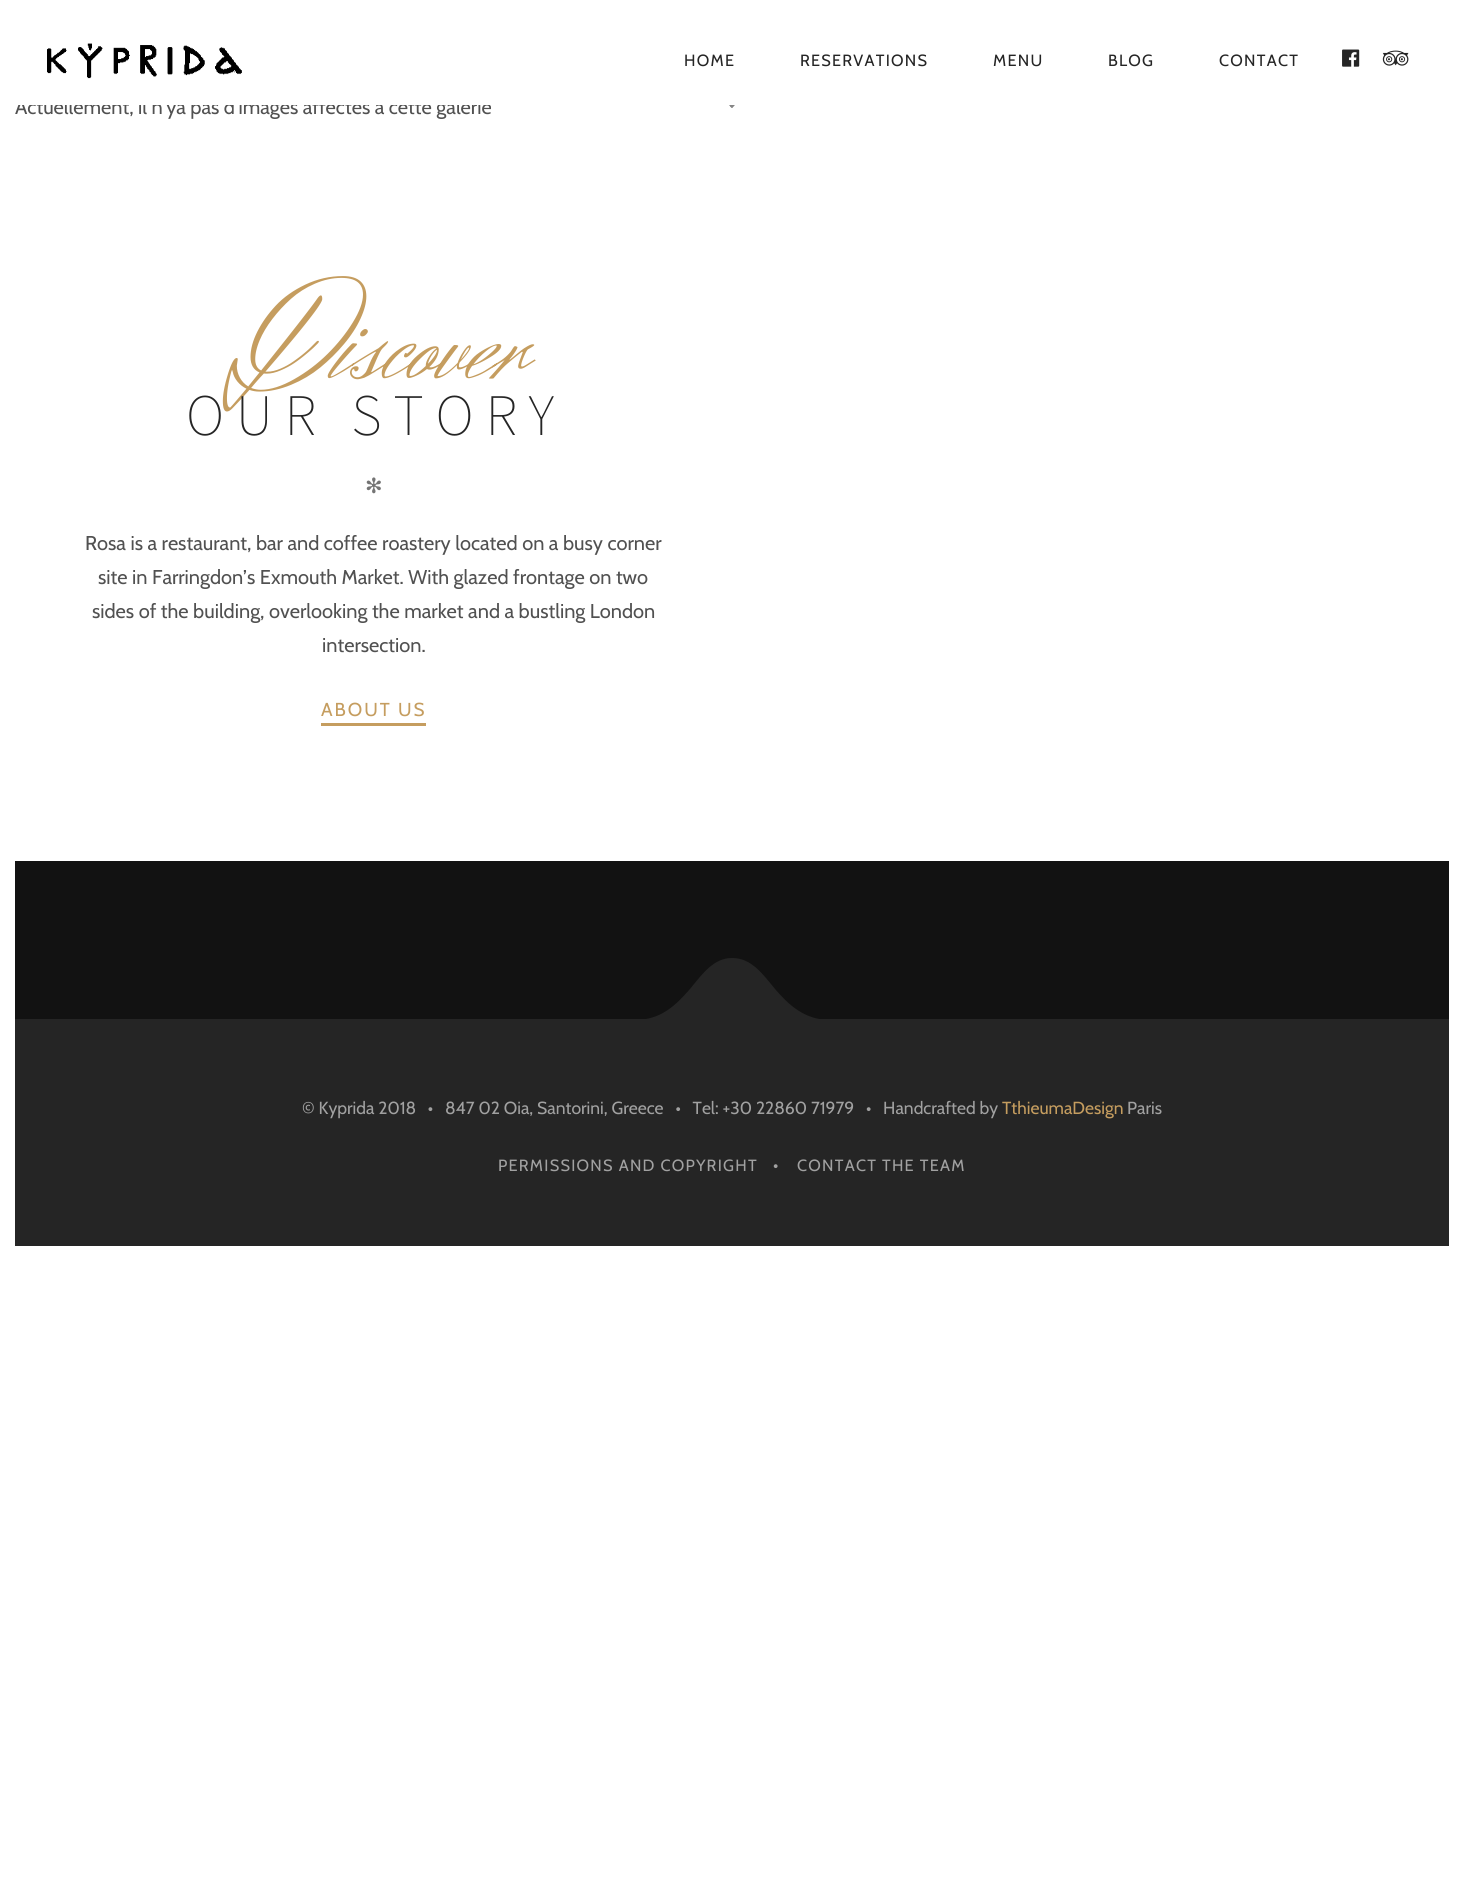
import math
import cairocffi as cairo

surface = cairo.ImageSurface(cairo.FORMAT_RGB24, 1463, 1896)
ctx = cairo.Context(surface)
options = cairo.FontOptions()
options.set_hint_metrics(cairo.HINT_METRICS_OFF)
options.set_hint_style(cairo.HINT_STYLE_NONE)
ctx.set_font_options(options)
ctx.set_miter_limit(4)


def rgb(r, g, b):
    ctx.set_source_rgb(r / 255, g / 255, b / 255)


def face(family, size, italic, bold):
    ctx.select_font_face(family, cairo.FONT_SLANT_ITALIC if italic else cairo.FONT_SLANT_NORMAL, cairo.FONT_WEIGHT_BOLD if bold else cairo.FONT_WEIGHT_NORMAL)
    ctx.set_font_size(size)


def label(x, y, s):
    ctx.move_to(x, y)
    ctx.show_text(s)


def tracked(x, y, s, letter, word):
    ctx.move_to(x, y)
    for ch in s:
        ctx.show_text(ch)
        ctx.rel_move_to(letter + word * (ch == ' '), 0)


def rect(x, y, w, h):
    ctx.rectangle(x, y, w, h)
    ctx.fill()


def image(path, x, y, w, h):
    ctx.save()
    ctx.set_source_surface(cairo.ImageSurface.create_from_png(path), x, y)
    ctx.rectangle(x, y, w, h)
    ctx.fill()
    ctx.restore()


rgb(255, 255, 255)
ctx.paint()
face('Cabin', 20, 0, 0)
rgb(81, 81, 81)
label(15, 114, 'Actuellement, il n\'ya pas d\'images affectés à cette galerie')
rgb(133, 133, 133)
ctx.new_path()
ctx.move_to(744, 92)
ctx.line_to(746, 94)
ctx.line_to(732, 108)
ctx.line_to(730, 106.5)
ctx.close_path()
ctx.fill()
ctx.new_path()
ctx.move_to(719.5, 92)
ctx.line_to(733.5, 106.5)
ctx.line_to(732, 108)
ctx.line_to(717.5, 94)
ctx.close_path()
ctx.fill()
rgb(255, 255, 255)
rect(18, 92, 728, 13)
image('image0.png', 47, 43, 195, 36)
face('Cabin', 16.25, 0, 0)
rgb(37, 37, 37)
tracked(684, 66, 'HOME', 1.25, 0)
tracked(800, 66, 'RESERVATIONS', 1.25, 0)
tracked(993, 66, 'MENU', 1.25, 0)
tracked(1108, 66, 'BLOG', 1.25, 0)
tracked(1219, 66, 'CONTACT', 1.25, 0)
image('image1.png', 1342, 49, 18, 18)
image('image2.png', 1382, 50, 27, 16)
face('Herr Von Muellerhoff', 125, 0, 0)
rgb(197, 157, 95)
label(331, 378, 'iscover')
face('Herr Von Muellerhoff', 152, 0, 0)
tracked(223, 389, 'D', 90, 0)
face('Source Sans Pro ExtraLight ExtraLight', 58.75, 0, 0)
rgb(37, 37, 37)
tracked(186, 435, 'OUR STORY', 11.75, 0)
face('DejaVu Sans', 21, 0, 0)
rgb(116, 116, 116)
label(365, 493, '✻')
face('Cabin', 20, 0, 0)
rgb(81, 81, 81)
label(85, 550, 'Rosa is a restaurant, bar and coffee roastery located on a busy corner')
label(98, 584, 'site in Farringdon’s Exmouth Market. With glazed frontage on two')
label(92, 618, 'sides of the building, overlooking the market and a bustling London')
label(322, 652, 'intersection.')
rgb(197, 157, 95)
rect(321, 723, 105, 3)
face('Cabin', 18.75, 0, 0)
tracked(321, 716, 'ABOUT US', 2, 0)
rgb(18, 18, 18)
rect(15, 861, 1434, 158)
rgb(37, 37, 37)
rect(15, 1019, 1434, 227)
ctx.new_path()
ctx.move_to(732, 1033)
ctx.line_to(785, 1027)
ctx.curve_to(811, 1023, 836, 1020, 830, 1020)
ctx.curve_to(804, 1020, 788, 1004, 775, 989)
ctx.curve_to(762, 973, 751, 958, 732, 958)
ctx.curve_to(714, 958, 703, 973, 690, 989)
ctx.curve_to(676, 1005, 661, 1020, 635, 1020)
ctx.curve_to(629, 1020, 627, 1020, 639, 1022)
ctx.close_path()
ctx.fill()
face('Cabin', 17.5, 0, 0)
rgb(161, 161, 161)
label(302, 1114, '© Kyprida 2018   •   847 02 Oia, Santorini, Greece   •   Tel: +30 22860 71979   •   Handcrafted by')
rgb(197, 157, 95)
label(1002, 1114, 'TthieumaDesign')
rgb(161, 161, 161)
label(1127, 1114, 'Paris')
face('Cabin', 16.25, 0, 0)
tracked(498, 1171, 'PERMISSIONS AND COPYRIGHT', 1.25, 0)
face('Cabin', 17.5, 0, 0)
label(773, 1171, '•')
face('Cabin', 16.25, 0, 0)
tracked(797, 1171, 'CONTACT THE TEAM', 1.25, 0)
surface.write_to_png('render.png')
